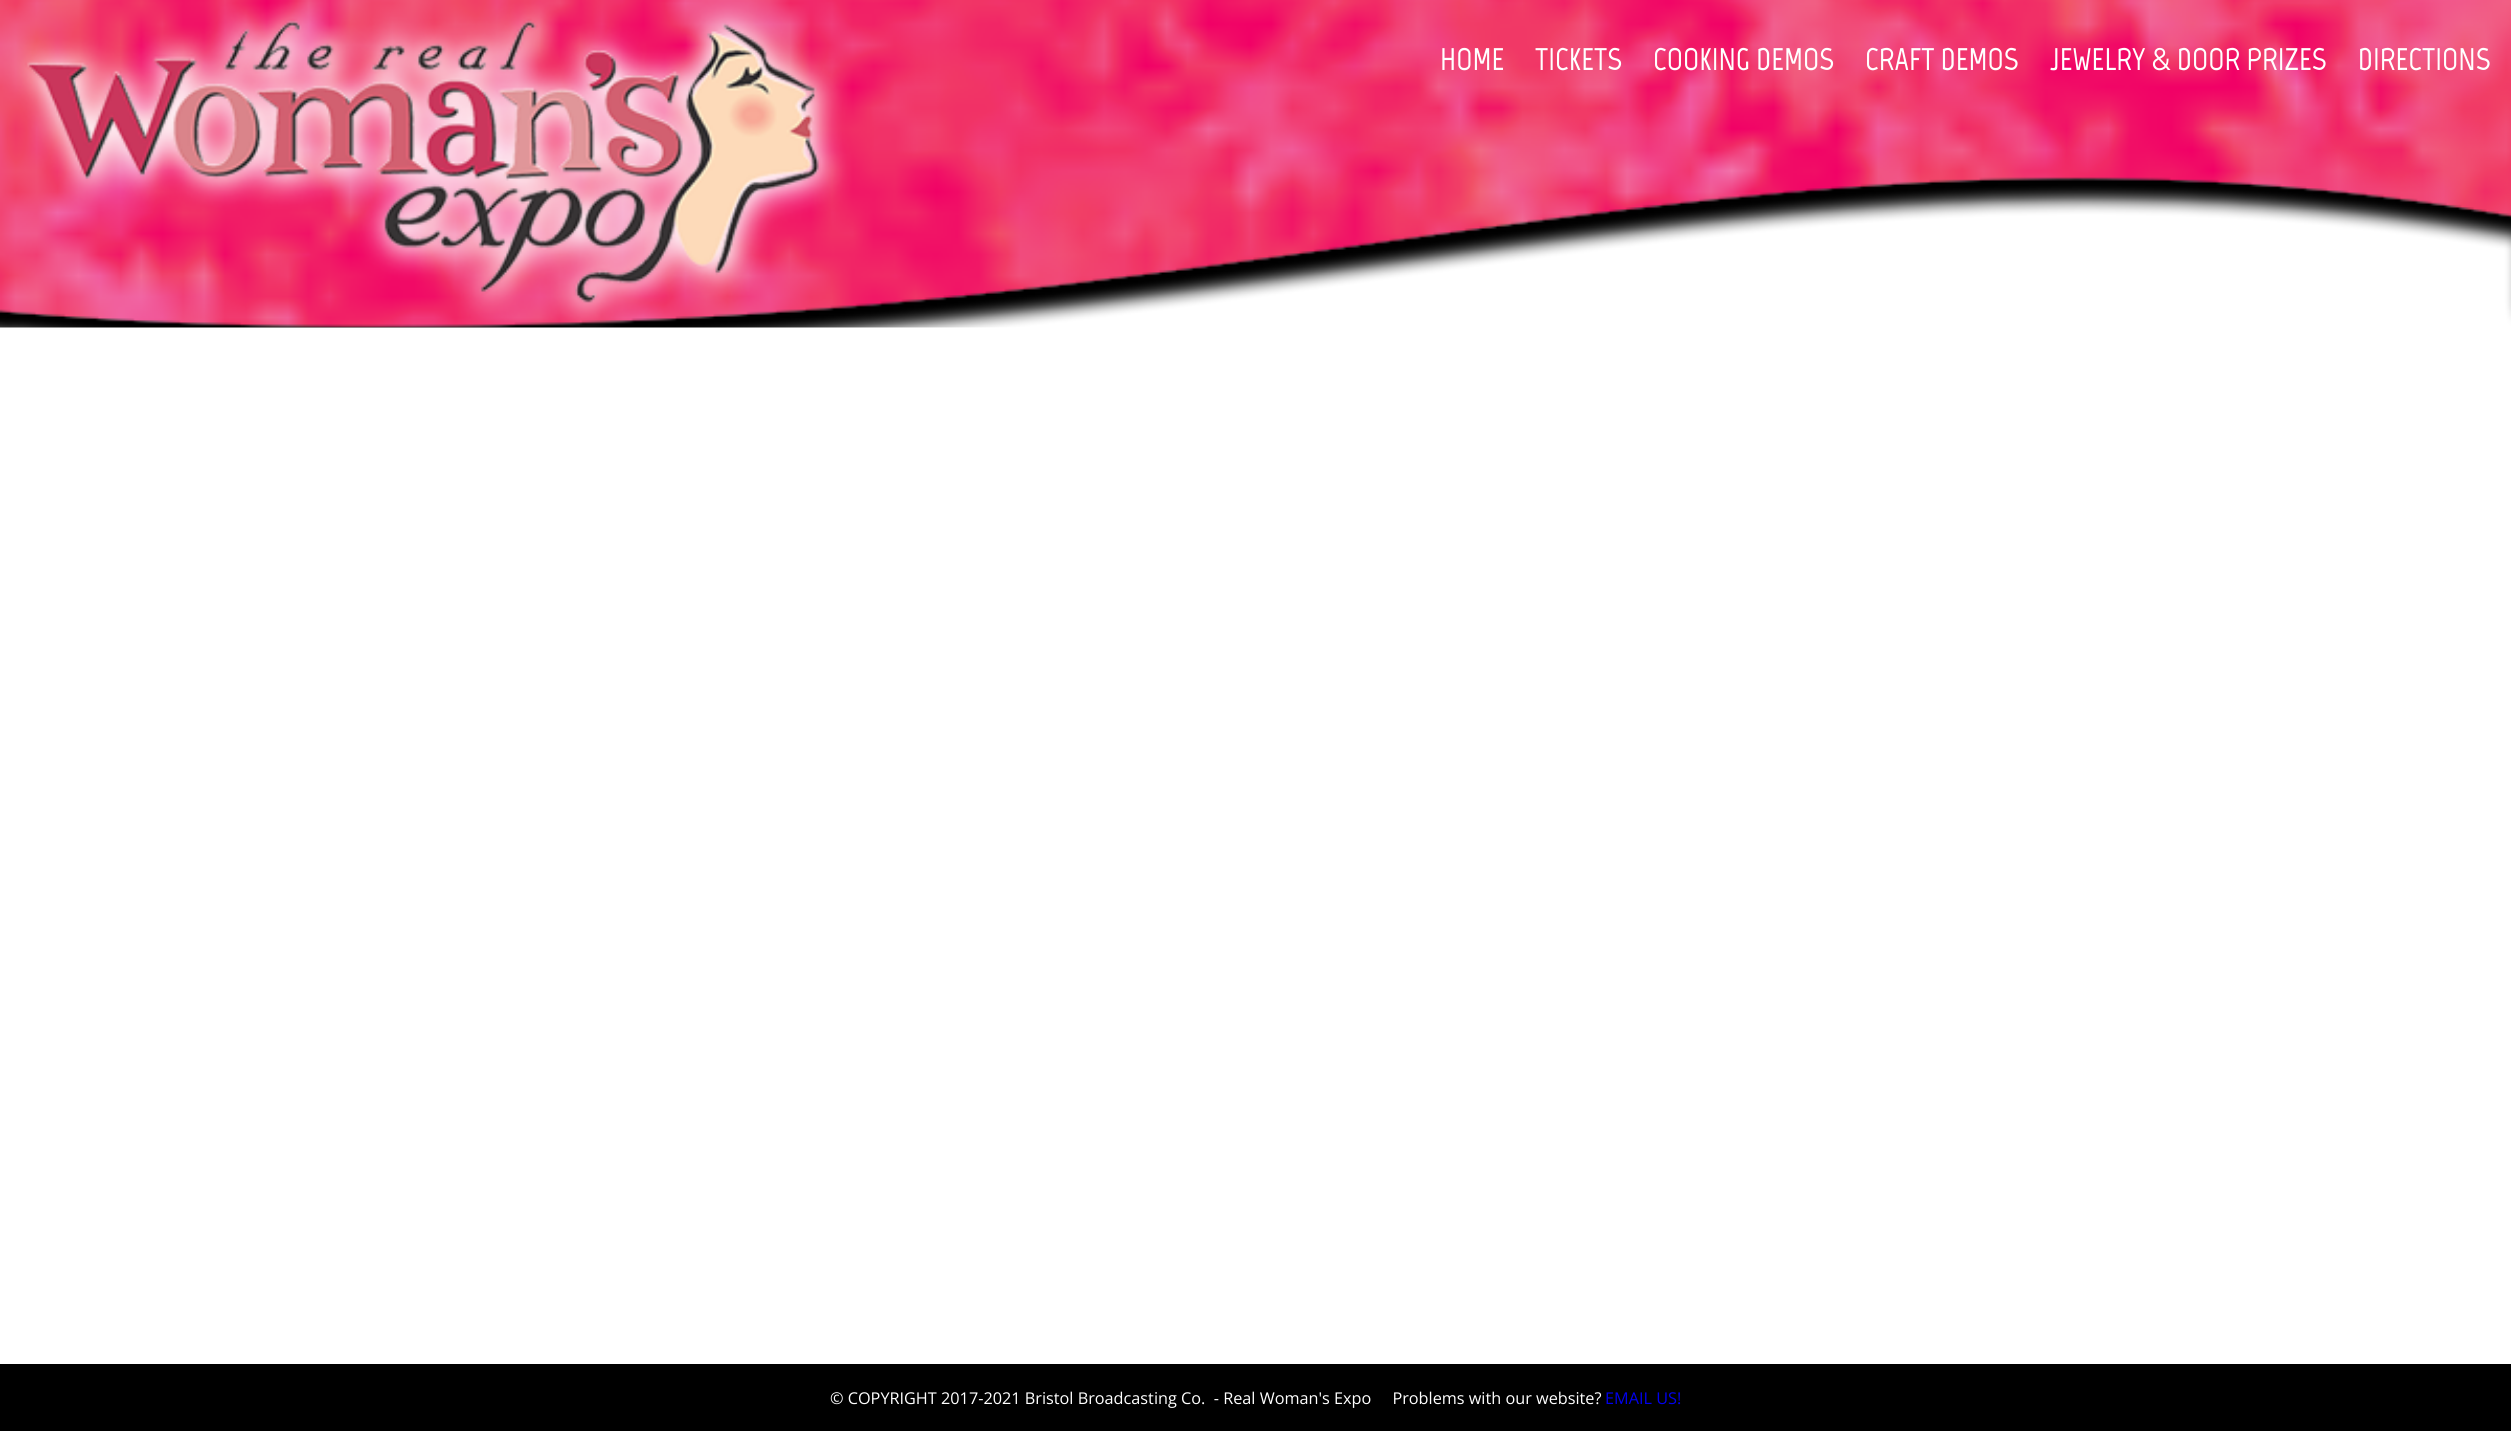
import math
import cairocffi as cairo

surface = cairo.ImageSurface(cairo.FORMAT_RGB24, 2511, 1431)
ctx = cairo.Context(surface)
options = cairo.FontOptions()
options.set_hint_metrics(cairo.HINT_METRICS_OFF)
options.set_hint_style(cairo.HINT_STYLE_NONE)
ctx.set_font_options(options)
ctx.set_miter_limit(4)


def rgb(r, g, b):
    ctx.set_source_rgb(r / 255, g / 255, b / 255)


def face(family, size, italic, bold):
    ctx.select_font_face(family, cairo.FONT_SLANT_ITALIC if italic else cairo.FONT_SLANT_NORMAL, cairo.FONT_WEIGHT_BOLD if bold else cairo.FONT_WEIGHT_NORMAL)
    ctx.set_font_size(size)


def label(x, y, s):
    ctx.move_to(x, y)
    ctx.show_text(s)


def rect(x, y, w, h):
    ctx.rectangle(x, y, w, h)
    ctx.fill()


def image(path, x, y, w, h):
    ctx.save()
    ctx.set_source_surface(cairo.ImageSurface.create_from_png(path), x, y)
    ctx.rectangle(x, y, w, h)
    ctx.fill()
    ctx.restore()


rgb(255, 255, 255)
ctx.paint()
image('image0.png', 0, 0, 2511, 328)
face('Marvel', 31.25, 0, 1)
rgb(255, 255, 255)
label(1440, 70, 'HOME')
label(1535, 70, 'TICKETS')
label(1653, 70, 'COOKING DEMOS')
label(1865, 70, 'CRAFT DEMOS')
label(2050, 70, 'JEWELRY & DOOR PRIZES')
label(2358, 70, 'DIRECTIONS')
rgb(0, 0, 0)
rect(0, 1364, 2511, 67)
face('Open Sans', 16.25, 0, 0)
rgb(255, 255, 255)
label(830, 1404, '© COPYRIGHT 2017-2021 Bristol Broadcasting Co.  - Real Woman\'s Expo     Problems with our website?')
rgb(0, 0, 238)
label(1605, 1404, 'EMAIL US!')
surface.write_to_png('render.png')
